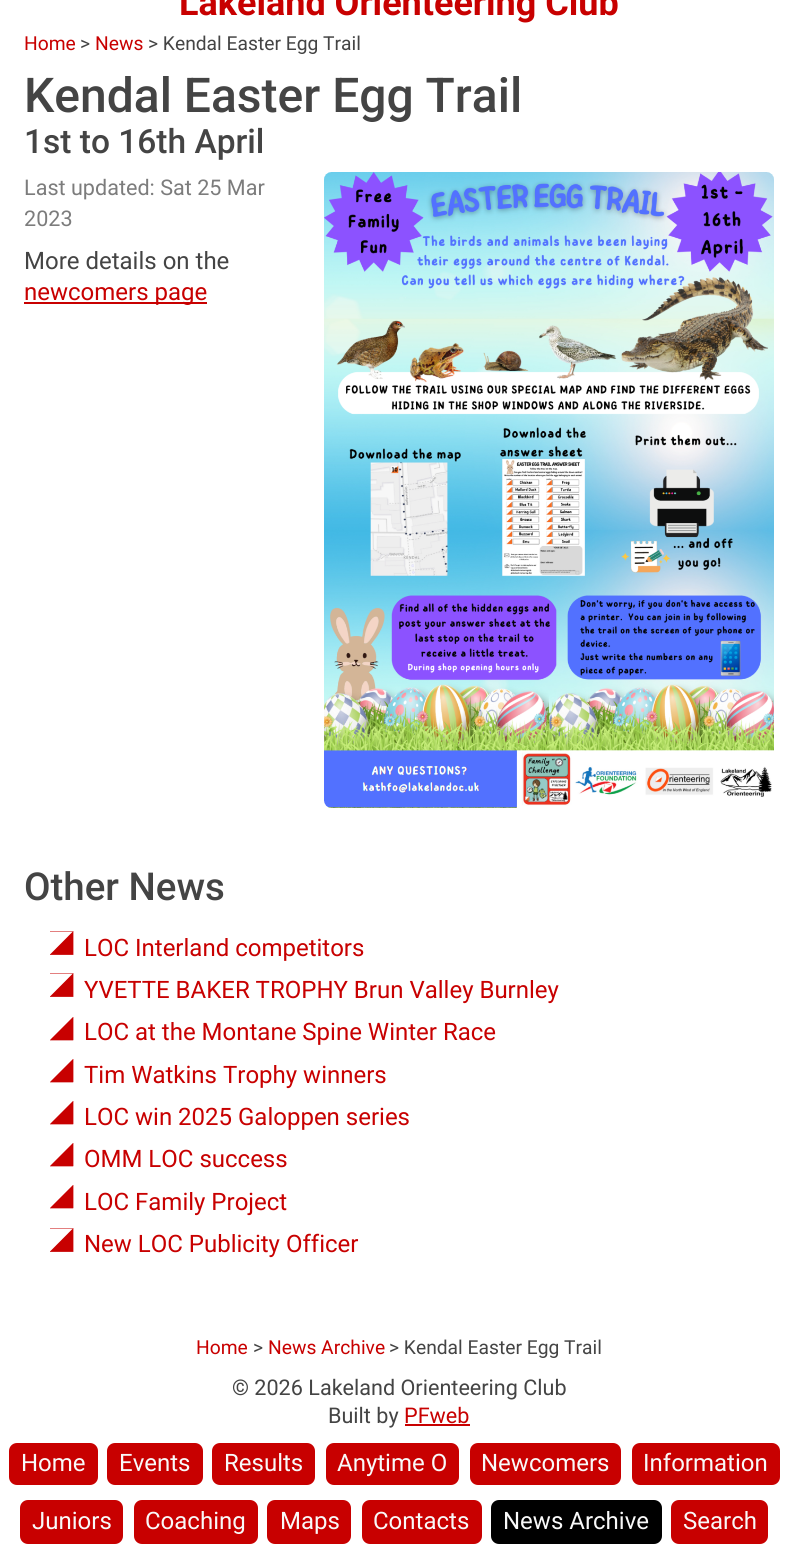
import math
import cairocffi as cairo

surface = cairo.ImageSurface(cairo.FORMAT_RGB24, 798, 1559)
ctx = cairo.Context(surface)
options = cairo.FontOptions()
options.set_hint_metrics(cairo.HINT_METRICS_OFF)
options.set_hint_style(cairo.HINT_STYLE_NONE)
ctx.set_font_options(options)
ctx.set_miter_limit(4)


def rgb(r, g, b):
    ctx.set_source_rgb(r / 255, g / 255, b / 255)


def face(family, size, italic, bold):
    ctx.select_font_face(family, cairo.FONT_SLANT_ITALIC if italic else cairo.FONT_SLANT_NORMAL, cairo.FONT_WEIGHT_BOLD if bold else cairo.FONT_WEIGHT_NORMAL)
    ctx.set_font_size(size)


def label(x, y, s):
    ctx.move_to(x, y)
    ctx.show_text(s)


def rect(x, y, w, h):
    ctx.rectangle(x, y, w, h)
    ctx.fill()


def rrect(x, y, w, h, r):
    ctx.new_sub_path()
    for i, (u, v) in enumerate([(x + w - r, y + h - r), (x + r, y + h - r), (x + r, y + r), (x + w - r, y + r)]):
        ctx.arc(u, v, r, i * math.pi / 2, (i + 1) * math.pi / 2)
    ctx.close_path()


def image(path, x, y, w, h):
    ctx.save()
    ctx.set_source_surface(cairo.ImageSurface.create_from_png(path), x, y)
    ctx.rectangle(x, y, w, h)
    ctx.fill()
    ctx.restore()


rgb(255, 255, 255)
ctx.paint()
face('Roboto', 36, 0, 1)
rgb(200, 0, 0)
label(179, 15, 'Lakeland Orienteering Club')
face('Roboto', 19.25, 0, 0)
label(24, 50, 'Home')
rgb(68, 68, 68)
label(80, 50, '>')
rgb(200, 0, 0)
label(95, 50, 'News')
rgb(68, 68, 68)
label(148, 50, '> Kendal Easter Egg Trail')
face('Roboto Medium', 48, 0, 0)
label(24, 112, 'Kendal Easter Egg Trail')
face('Roboto Medium', 33.5, 0, 0)
label(24, 153, '1st to 16th April')
face('Roboto', 21.6, 0, 0)
rgb(124, 124, 124)
label(24, 195, 'Last updated: Sat 25 Mar')
image('image0.png', 324, 172, 450, 636)
label(24, 226, '2023')
face('Roboto', 24, 0, 0)
rgb(68, 68, 68)
label(24, 269, 'More details on the')
rgb(200, 0, 0)
rect(24, 302, 183, 2)
label(24, 300, 'newcomers page')
face('Roboto Medium', 38.5, 0, 0)
rgb(68, 68, 68)
label(24, 900, 'Other News')
image('image1.png', 50, 931, 24, 24)
face('Roboto', 24, 0, 0)
rgb(200, 0, 0)
label(84, 956, 'LOC Interland competitors')
image('image1.png', 50, 973, 24, 24)
label(84, 998, 'YVETTE BAKER TROPHY Brun Valley Burnley')
image('image2.png', 50, 1017, 24, 24)
label(84, 1040, 'LOC at the Montane Spine Winter Race')
image('image2.png', 50, 1059, 24, 24)
label(84, 1083, 'Tim Watkins Trophy winners')
image('image2.png', 50, 1101, 24, 24)
label(84, 1125, 'LOC win 2025 Galoppen series')
image('image2.png', 50, 1143, 24, 24)
label(84, 1167, 'OMM LOC success')
image('image2.png', 50, 1185, 24, 24)
label(84, 1210, 'LOC Family Project')
image('image3.png', 50, 1228, 24, 24)
label(84, 1252, 'New LOC Publicity Officer')
rrect(9, 1443, 89, 42, 8)
ctx.fill()
rgb(249, 249, 249)
label(21, 1471, 'Home')
rgb(200, 0, 0)
rrect(107, 1443, 96, 42, 8)
ctx.fill()
rgb(249, 249, 249)
label(119, 1471, 'Events')
rgb(200, 0, 0)
rrect(212, 1443, 103, 42, 8)
ctx.fill()
rgb(249, 249, 249)
label(224, 1471, 'Results')
rgb(200, 0, 0)
rrect(326, 1443, 133, 42, 8)
ctx.fill()
rgb(249, 249, 249)
label(337, 1471, 'Anytime O')
rgb(200, 0, 0)
rrect(470, 1443, 151, 42, 8)
ctx.fill()
rgb(249, 249, 249)
label(481, 1471, 'Newcomers')
rgb(200, 0, 0)
rrect(632, 1443, 148, 42, 8)
ctx.fill()
rgb(249, 249, 249)
label(643, 1471, 'Information')
rgb(200, 0, 0)
rrect(20, 1500, 103, 44, 8)
ctx.fill()
rgb(249, 249, 249)
label(32, 1529, 'Juniors')
rgb(200, 0, 0)
rrect(134, 1500, 124, 44, 8)
ctx.fill()
rgb(249, 249, 249)
label(145, 1529, 'Coaching')
rgb(200, 0, 0)
rrect(267, 1500, 84, 44, 8)
ctx.fill()
rgb(249, 249, 249)
label(280, 1529, 'Maps')
rgb(200, 0, 0)
rrect(362, 1500, 120, 44, 8)
ctx.fill()
rgb(249, 249, 249)
label(373, 1529, 'Contacts')
rgb(0, 0, 0)
rrect(491, 1500, 171, 44, 8)
ctx.fill()
rgb(249, 249, 249)
label(503, 1529, 'News Archive')
rgb(200, 0, 0)
rrect(671, 1500, 97, 44, 8)
ctx.fill()
rgb(249, 249, 249)
label(683, 1529, 'Search')
face('Roboto', 19.25, 0, 0)
rgb(200, 0, 0)
label(196, 1354, 'Home')
rgb(68, 68, 68)
label(253, 1354, '>')
rgb(200, 0, 0)
label(268, 1354, 'News Archive')
rgb(68, 68, 68)
label(389, 1354, '> Kendal Easter Egg Trail')
face('Roboto', 21.6, 0, 0)
label(232, 1395, '© 2026 Lakeland Orienteering Club')
label(328, 1423, 'Built by')
rgb(200, 0, 0)
label(404, 1423, 'PFweb')
rect(405, 1424, 65, 2)
surface.write_to_png('render.png')
